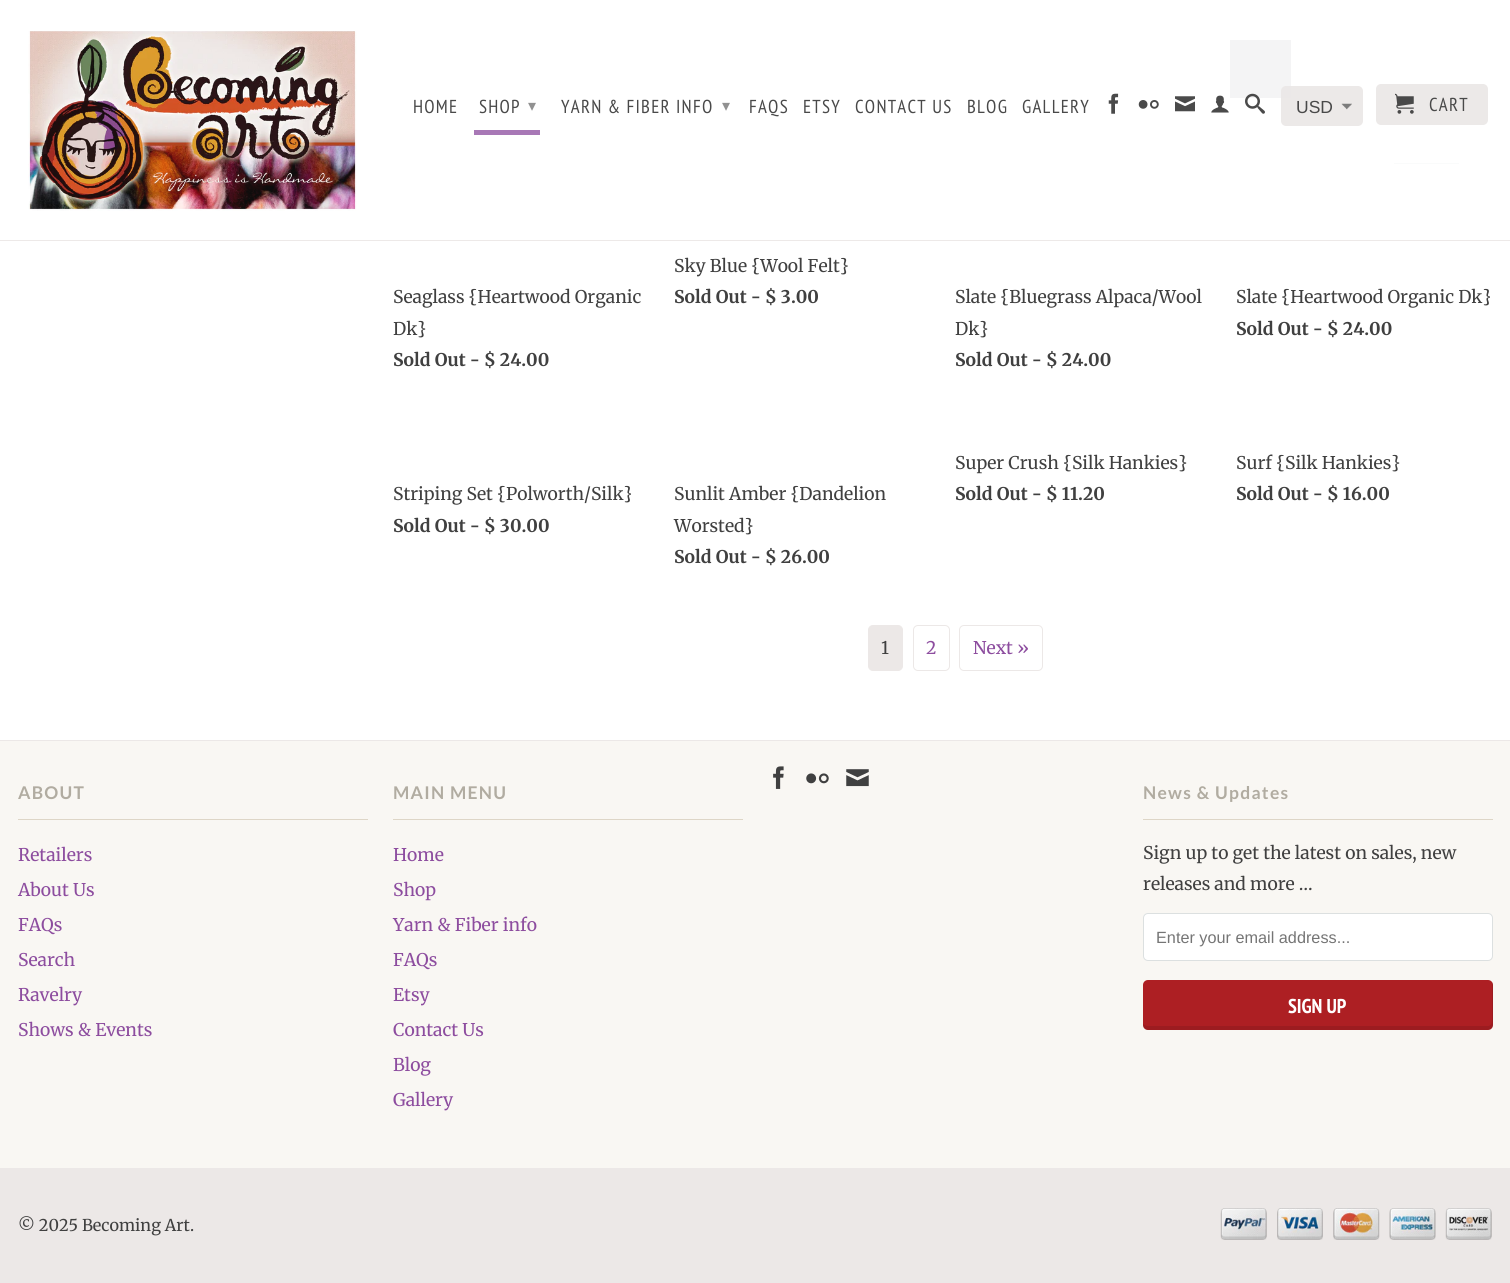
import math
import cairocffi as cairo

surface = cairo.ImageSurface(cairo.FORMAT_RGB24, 1510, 1283)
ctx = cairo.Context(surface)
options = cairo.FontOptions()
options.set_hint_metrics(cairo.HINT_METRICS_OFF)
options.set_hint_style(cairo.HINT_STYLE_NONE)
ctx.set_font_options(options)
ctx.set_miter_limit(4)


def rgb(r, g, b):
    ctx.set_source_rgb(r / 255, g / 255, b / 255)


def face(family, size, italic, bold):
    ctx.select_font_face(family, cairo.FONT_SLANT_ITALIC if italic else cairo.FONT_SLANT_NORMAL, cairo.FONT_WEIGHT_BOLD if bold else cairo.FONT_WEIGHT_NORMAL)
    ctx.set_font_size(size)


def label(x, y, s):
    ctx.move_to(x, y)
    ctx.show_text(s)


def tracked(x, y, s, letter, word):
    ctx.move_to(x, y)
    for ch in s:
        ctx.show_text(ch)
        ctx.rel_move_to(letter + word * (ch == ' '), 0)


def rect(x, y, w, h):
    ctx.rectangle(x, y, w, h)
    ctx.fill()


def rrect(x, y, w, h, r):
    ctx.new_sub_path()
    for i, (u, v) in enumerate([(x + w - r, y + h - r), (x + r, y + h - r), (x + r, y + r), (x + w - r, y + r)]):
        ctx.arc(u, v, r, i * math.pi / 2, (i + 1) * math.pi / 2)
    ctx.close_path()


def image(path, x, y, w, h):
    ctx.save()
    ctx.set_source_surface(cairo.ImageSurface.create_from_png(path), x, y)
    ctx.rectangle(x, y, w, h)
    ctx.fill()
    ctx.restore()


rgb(255, 255, 255)
ctx.paint()
rgb(237, 233, 232)
rect(0, 240, 1510, 1)
image('image0.png', 28, 31, 329, 180)
face('PT Sans Narrow', 18.75, 0, 0)
rgb(73, 73, 73)
tracked(413, 113, 'HOME', 1.25, 0)
tracked(479, 113, 'SHOP', 1.25, 0)
face('DejaVu Sans', 16, 0, 0)
rgb(145, 145, 145)
tracked(528, 111, '▾', 1.25, 0)
rgb(168, 120, 182)
rect(474, 130, 66, 5)
face('PT Sans Narrow', 18.75, 0, 0)
rgb(73, 73, 73)
tracked(561, 113, 'YARN & FIBER INFO', 1.25, 0)
face('DejaVu Sans', 16, 0, 0)
rgb(145, 145, 145)
tracked(722, 111, '▾', 1.25, 0)
face('PT Sans Narrow', 18.75, 0, 0)
rgb(73, 73, 73)
tracked(749, 113, 'FAQS', 1.25, 0)
tracked(803, 113, 'ETSY', 1.25, 0)
tracked(855, 113, 'CONTACT US', 1.25, 0)
tracked(967, 113, 'BLOG', 1.25, 0)
tracked(1022, 113, 'GALLERY', 1.25, 0)
image('image1.png', 1108, 93, 11, 21)
image('image2.png', 1138, 100, 21, 9)
image('image3.png', 1175, 96, 20, 16)
image('image4.png', 1211, 95, 18, 18)
rgb(244, 244, 245)
rect(1230, 40, 61, 58)
image('image5.png', 1245, 93, 20, 21)
ctx.set_source_rgba(0.925, 0.91, 0.906, 0.95)
rrect(1281, 86, 82, 40, 5)
ctx.fill()
image('image6.png', 1341, 103, 11, 7)
face('Liberation Sans', 17.5, 0, 0)
rgb(73, 73, 73)
label(1296, 113, 'USD')
ctx.set_source_rgba(0.925, 0.91, 0.906, 0.95)
rrect(1376, 84, 112, 41, 5)
ctx.fill()
image('image7.png', 1395, 93, 19, 21)
face('PT Sans Narrow', 18.75, 0, 0)
rgb(73, 73, 73)
tracked(1429, 111, 'CART', 1.25, 0)
rgb(250, 251, 251)
rect(1394, 163, 65, 1)
face('Merriweather', 17.5, 0, 0)
rgb(64, 64, 64)
label(674, 272, 'Sky Blue {Wool Felt}')
face('Merriweather', 17.5, 0, 1)
label(674, 303, 'Sold Out - $ 3.00')
face('Merriweather', 17.5, 0, 0)
label(393, 303, 'Seaglass {Heartwood Organic')
label(393, 335, 'Dk}')
face('Merriweather', 17.5, 0, 1)
label(393, 366, 'Sold Out - $ 24.00')
face('Merriweather', 17.5, 0, 0)
label(955, 303, 'Slate {Bluegrass Alpaca/Wool')
label(955, 335, 'Dk}')
face('Merriweather', 17.5, 0, 1)
label(955, 366, 'Sold Out - $ 24.00')
face('Merriweather', 17.5, 0, 0)
label(1236, 303, 'Slate {Heartwood Organic Dk}')
face('Merriweather', 17.5, 0, 1)
label(1236, 335, 'Sold Out - $ 24.00')
face('Merriweather', 17.5, 0, 0)
label(955, 469, 'Super Crush {Silk Hankies}')
face('Merriweather', 17.5, 0, 1)
label(955, 500, 'Sold Out - $ 11.20')
face('Merriweather', 17.5, 0, 0)
label(1236, 469, 'Surf {Silk Hankies}')
face('Merriweather', 17.5, 0, 1)
label(1236, 500, 'Sold Out - $ 16.00')
face('Merriweather', 17.5, 0, 0)
label(393, 500, 'Striping Set {Polworth/Silk}')
face('Merriweather', 17.5, 0, 1)
label(393, 532, 'Sold Out - $ 30.00')
face('Merriweather', 17.5, 0, 0)
label(674, 500, 'Sunlit Amber {Dandelion')
label(674, 532, 'Worsted}')
face('Merriweather', 17.5, 0, 1)
label(674, 563, 'Sold Out - $ 26.00')
rgb(236, 232, 231)
rrect(868.5, 625.5, 34, 45, 4.5)
ctx.fill_preserve()
ctx.set_line_width(1)
ctx.stroke()
face('Merriweather', 17.5, 0, 0)
rgb(64, 64, 64)
label(881, 654, '1')
rrect(913.5, 625.5, 36, 45, 4.5)
rgb(236, 232, 231)
ctx.stroke()
rgb(141, 77, 159)
label(926, 654, '2')
rrect(959.5, 625.5, 83, 45, 4.5)
rgb(236, 232, 231)
ctx.stroke()
rgb(141, 77, 159)
label(973, 654, 'Next »')
rgb(249, 247, 243)
rect(0, 741, 1510, 427)
rgb(236, 232, 231)
rect(0, 740, 1510, 1)
image('image8.png', 773, 766, 11, 23)
image('image9.png', 806, 773, 23, 11)
image('image10.png', 846, 769, 23, 18)
rgb(222, 214, 199)
rect(18, 819, 350, 1)
face('Lato', 17.5, 0, 1)
rgb(177, 172, 161)
tracked(18, 799, 'ABOUT', 1.25, 0)
face('Merriweather', 17.5, 0, 0)
rgb(141, 77, 159)
label(18, 861, 'Retailers')
label(18, 896, 'About Us')
label(18, 931, 'FAQs')
label(18, 966, 'Search')
label(18, 1001, 'Ravelry')
label(18, 1036, 'Shows & Events')
rgb(222, 214, 199)
rect(393, 819, 350, 1)
face('Lato', 17.5, 0, 1)
rgb(177, 172, 161)
tracked(393, 799, 'MAIN MENU', 1.25, 0)
face('Merriweather', 17.5, 0, 0)
rgb(141, 77, 159)
label(393, 861, 'Home')
label(393, 896, 'Shop')
label(393, 931, 'Yarn & Fiber info')
label(393, 966, 'FAQs')
label(393, 1001, 'Etsy')
label(393, 1036, 'Contact Us')
label(393, 1071, 'Blog')
label(393, 1106, 'Gallery')
rgb(222, 214, 199)
rect(1143, 819, 350, 1)
face('Lato', 17.5, 0, 1)
rgb(177, 172, 161)
tracked(1143, 799, 'News & Updates', 1.25, 0)
face('Merriweather', 17.5, 0, 0)
rgb(64, 64, 64)
label(1143, 859, 'Sign up to get the latest on sales, new')
label(1143, 890, 'releases and more …')
rgb(255, 255, 255)
rrect(1143.5, 913.5, 349, 47, 4.5)
ctx.fill_preserve()
rgb(220, 224, 224)
ctx.stroke()
face('Liberation Sans', 16.25, 0, 0)
rgb(117, 117, 117)
label(1156, 943, 'Enter your email address...')
rgb(173, 31, 35)
rrect(1143, 980, 350, 50, 5)
ctx.fill()
ctx.set_source_rgba(0, 0, 0, 0.1)
ctx.new_path()
ctx.move_to(1143, 1024)
ctx.line_to(1143, 1025)
ctx.curve_to(1143, 1028, 1145, 1030, 1148, 1030)
ctx.line_to(1488, 1030)
ctx.curve_to(1491, 1030, 1493, 1028, 1493, 1025)
ctx.line_to(1493, 985)
ctx.curve_to(1493, 984, 1493, 983, 1492, 982)
ctx.line_to(1492, 1021)
ctx.curve_to(1492, 1024, 1490, 1026, 1488, 1026)
ctx.line_to(1148, 1026)
ctx.curve_to(1146, 1026, 1144, 1025, 1143, 1024)
ctx.close_path()
ctx.fill()
face('PT Sans Narrow', 20, 0, 1)
rgb(255, 255, 255)
label(1288, 1013, 'SIGN UP')
rgb(236, 232, 231)
rect(0, 1168, 1510, 115)
face('Merriweather', 16.25, 0, 0)
rgb(64, 64, 64)
label(18, 1231, '© 2025 Becoming Art.')
image('image11.png', 1220, 1208, 47, 32)
image('image12.png', 1277, 1208, 46, 32)
image('image13.png', 1333, 1208, 47, 32)
image('image14.png', 1389, 1208, 47, 32)
image('image15.png', 1445, 1208, 47, 32)
surface.write_to_png('render.png')
